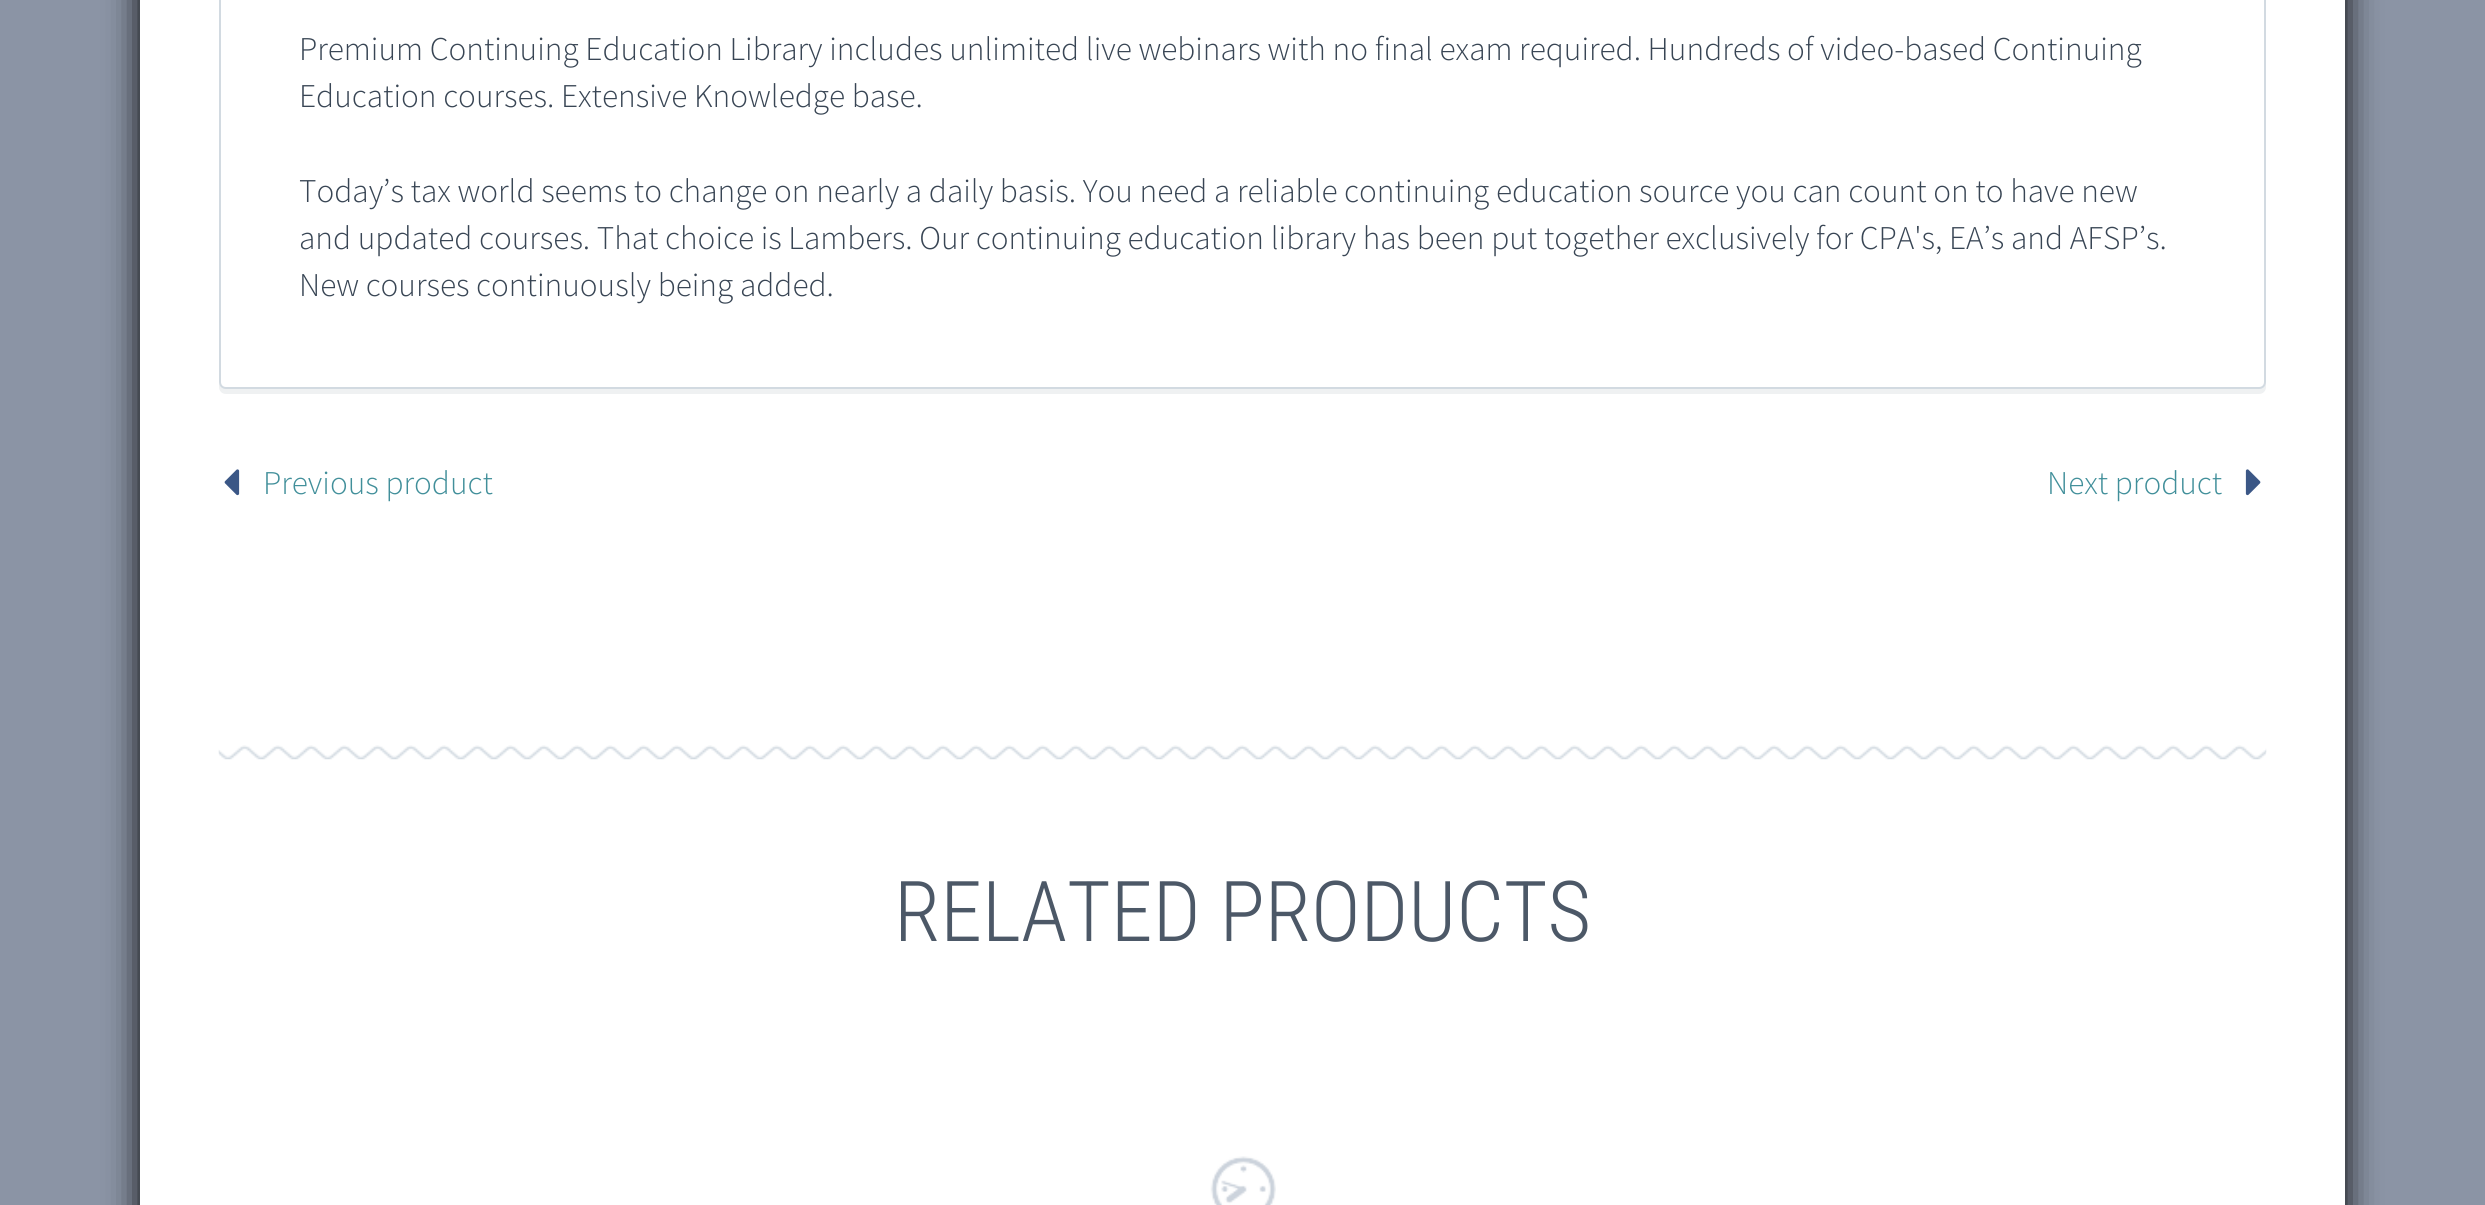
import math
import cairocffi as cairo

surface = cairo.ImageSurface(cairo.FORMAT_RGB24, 2485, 1205)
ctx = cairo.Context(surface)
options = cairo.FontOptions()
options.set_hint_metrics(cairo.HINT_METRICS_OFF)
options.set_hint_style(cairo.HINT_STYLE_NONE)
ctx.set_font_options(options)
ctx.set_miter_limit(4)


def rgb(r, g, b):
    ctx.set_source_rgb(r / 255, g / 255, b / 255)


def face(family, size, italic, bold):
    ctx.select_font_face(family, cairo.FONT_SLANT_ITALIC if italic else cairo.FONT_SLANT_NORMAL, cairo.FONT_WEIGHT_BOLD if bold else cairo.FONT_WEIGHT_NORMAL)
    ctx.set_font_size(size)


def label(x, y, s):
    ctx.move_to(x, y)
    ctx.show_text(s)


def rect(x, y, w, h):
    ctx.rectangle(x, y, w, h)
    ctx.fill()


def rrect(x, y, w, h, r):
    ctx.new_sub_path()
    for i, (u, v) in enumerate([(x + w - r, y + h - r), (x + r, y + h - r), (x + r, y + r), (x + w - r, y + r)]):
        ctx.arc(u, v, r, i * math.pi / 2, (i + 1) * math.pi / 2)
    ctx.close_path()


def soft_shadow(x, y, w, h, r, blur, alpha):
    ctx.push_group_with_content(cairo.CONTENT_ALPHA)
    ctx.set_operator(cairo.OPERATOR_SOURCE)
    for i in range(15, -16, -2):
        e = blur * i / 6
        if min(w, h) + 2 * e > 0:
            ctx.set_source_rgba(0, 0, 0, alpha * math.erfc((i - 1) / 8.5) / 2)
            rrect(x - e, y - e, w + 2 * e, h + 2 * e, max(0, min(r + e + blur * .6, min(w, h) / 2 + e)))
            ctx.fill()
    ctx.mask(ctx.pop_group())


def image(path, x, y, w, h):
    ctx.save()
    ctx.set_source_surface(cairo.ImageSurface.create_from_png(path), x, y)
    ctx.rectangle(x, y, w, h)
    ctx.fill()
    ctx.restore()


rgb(139, 148, 165)
ctx.paint()
rgb(0, 0, 0)
soft_shadow(140, -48, 2205, 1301, 0, 16, 1)
rgb(255, 255, 255)
rect(140, 0, 2205, 1205)
rgb(239, 241, 242)
ctx.new_path()
ctx.move_to(219, 383)
ctx.line_to(219, 387)
ctx.curve_to(219, 391, 222, 394, 226, 394)
ctx.line_to(2259, 394)
ctx.curve_to(2263, 394, 2266, 391, 2266, 387)
ctx.line_to(2266, 383)
ctx.curve_to(2265, 386, 2262, 388, 2259, 388)
ctx.line_to(226, 388)
ctx.curve_to(223, 388, 220, 386, 219, 383)
ctx.close_path()
ctx.fill()
rgb(255, 255, 255)
ctx.new_path()
ctx.move_to(220, -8)
ctx.line_to(2259, -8)
ctx.curve_to(2262.5, -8, 2265, -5.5, 2265, -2)
ctx.line_to(2265, 382)
ctx.curve_to(2265, 385.5, 2262.5, 388, 2259, 388)
ctx.line_to(226, 388)
ctx.curve_to(222.5, 388, 220, 385.5, 220, 382)
ctx.close_path()
ctx.fill_preserve()
rgb(210, 218, 225)
ctx.stroke()
face('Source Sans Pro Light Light', 33.25, 0, 0)
rgb(56, 69, 84)
label(299, 60, 'Premium Continuing Education Library includes unlimited live webinars with no final exam required. Hundreds of video-based Continuing')
label(299, 107, 'Education courses. Extensive Knowledge base.')
label(299, 202, 'Today’s tax world seems to change on nearly a daily basis. You need a reliable continuing education source you can count on to have new')
label(299, 249, 'and updated courses. That choice is Lambers. Our continuing education library has been put together exclusively for CPA\'s, EA’s and AFSP’s.')
label(299, 296, 'New courses continuously being added.')
image('image0.png', 224, 469, 16, 27)
rgb(65, 143, 154)
label(263, 494, 'Previous product')
label(2047, 494, 'Next product')
image('image1.png', 2245, 469, 16, 27)
image('image2.png', 218, 745, 2049, 15)
face('Roboto Condensed Light', 84, 0, 0)
rgb(76, 88, 103)
label(894, 941, 'RELATED PRODUCTS')
image('image3.png', 1210, 1156, 66, 49)
surface.write_to_png('render.png')
